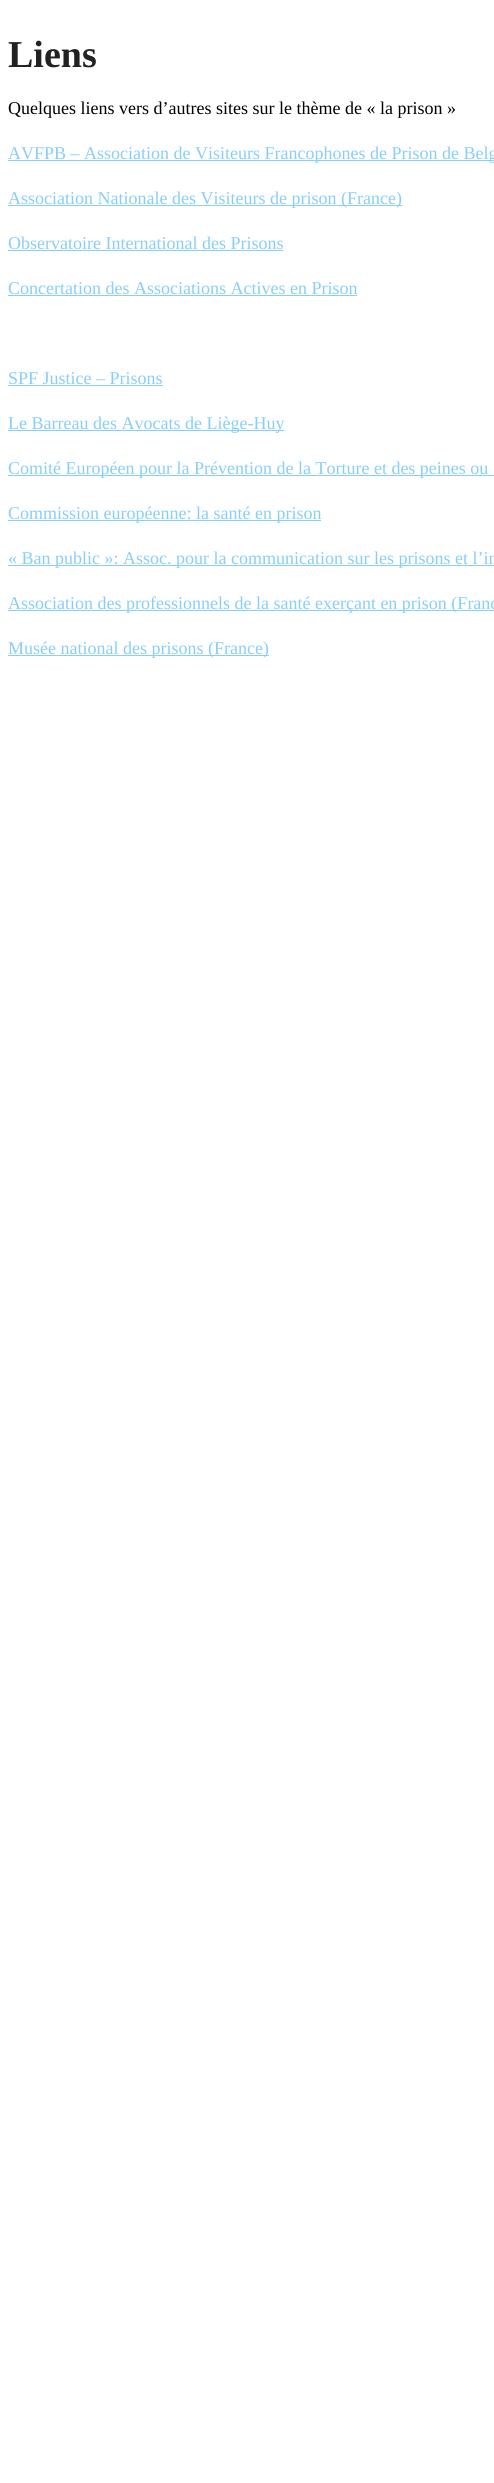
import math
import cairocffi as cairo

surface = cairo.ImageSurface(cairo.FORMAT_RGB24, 494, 2483)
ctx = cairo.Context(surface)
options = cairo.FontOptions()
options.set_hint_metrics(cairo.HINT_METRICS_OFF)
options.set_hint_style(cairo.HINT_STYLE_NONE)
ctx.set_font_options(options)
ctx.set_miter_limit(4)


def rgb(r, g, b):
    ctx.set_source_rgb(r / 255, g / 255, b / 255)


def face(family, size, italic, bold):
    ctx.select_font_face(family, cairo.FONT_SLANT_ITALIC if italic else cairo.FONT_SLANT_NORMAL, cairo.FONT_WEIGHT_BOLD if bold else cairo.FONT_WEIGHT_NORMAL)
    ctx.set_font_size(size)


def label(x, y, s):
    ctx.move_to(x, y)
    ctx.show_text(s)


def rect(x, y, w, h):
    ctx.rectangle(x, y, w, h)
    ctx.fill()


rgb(255, 255, 255)
ctx.paint()
face('Liberation Serif', 38, 0, 1)
rgb(34, 34, 34)
label(8, 67, 'Liens')
face('Liberation Serif', 18, 0, 0)
rgb(0, 0, 0)
label(8, 114, 'Quelques liens vers d’autres sites sur le thème de « la prison »')
rgb(135, 206, 250)
rect(8, 160, 486, 1)
label(8, 159, 'AVFPB – Association de Visiteurs Francophones de Prison de Belg')
rect(8, 205, 394, 1)
label(8, 204, 'Association Nationale des Visiteurs de prison (France)')
label(8, 249, 'Observatoire International des Prisons')
rect(8, 250, 275, 1)
label(8, 294, 'Concertation des Associations Actives en Prison')
rect(8, 295, 349, 1)
label(8, 384, 'SPF Justice – Prisons')
rect(8, 385, 155, 1)
rect(8, 430, 276, 1)
label(8, 429, 'Le Barreau des Avocats de Liège-Huy')
rect(8, 475, 486, 1)
label(8, 474, 'Comité Européen pour la Prévention de la Torture et des peines ou')
rect(8, 520, 313, 1)
label(8, 519, 'Commission européenne: la santé en prison')
rect(8, 565, 486, 1)
label(8, 564, '« Ban public »: Assoc. pour la communication sur les prisons et l’in')
rect(8, 610, 486, 1)
label(8, 609, 'Association des professionnels de la santé exerçant en prison (Franc')
rect(8, 655, 261, 1)
label(8, 654, 'Musée national des prisons (France)')
surface.write_to_png('render.png')
